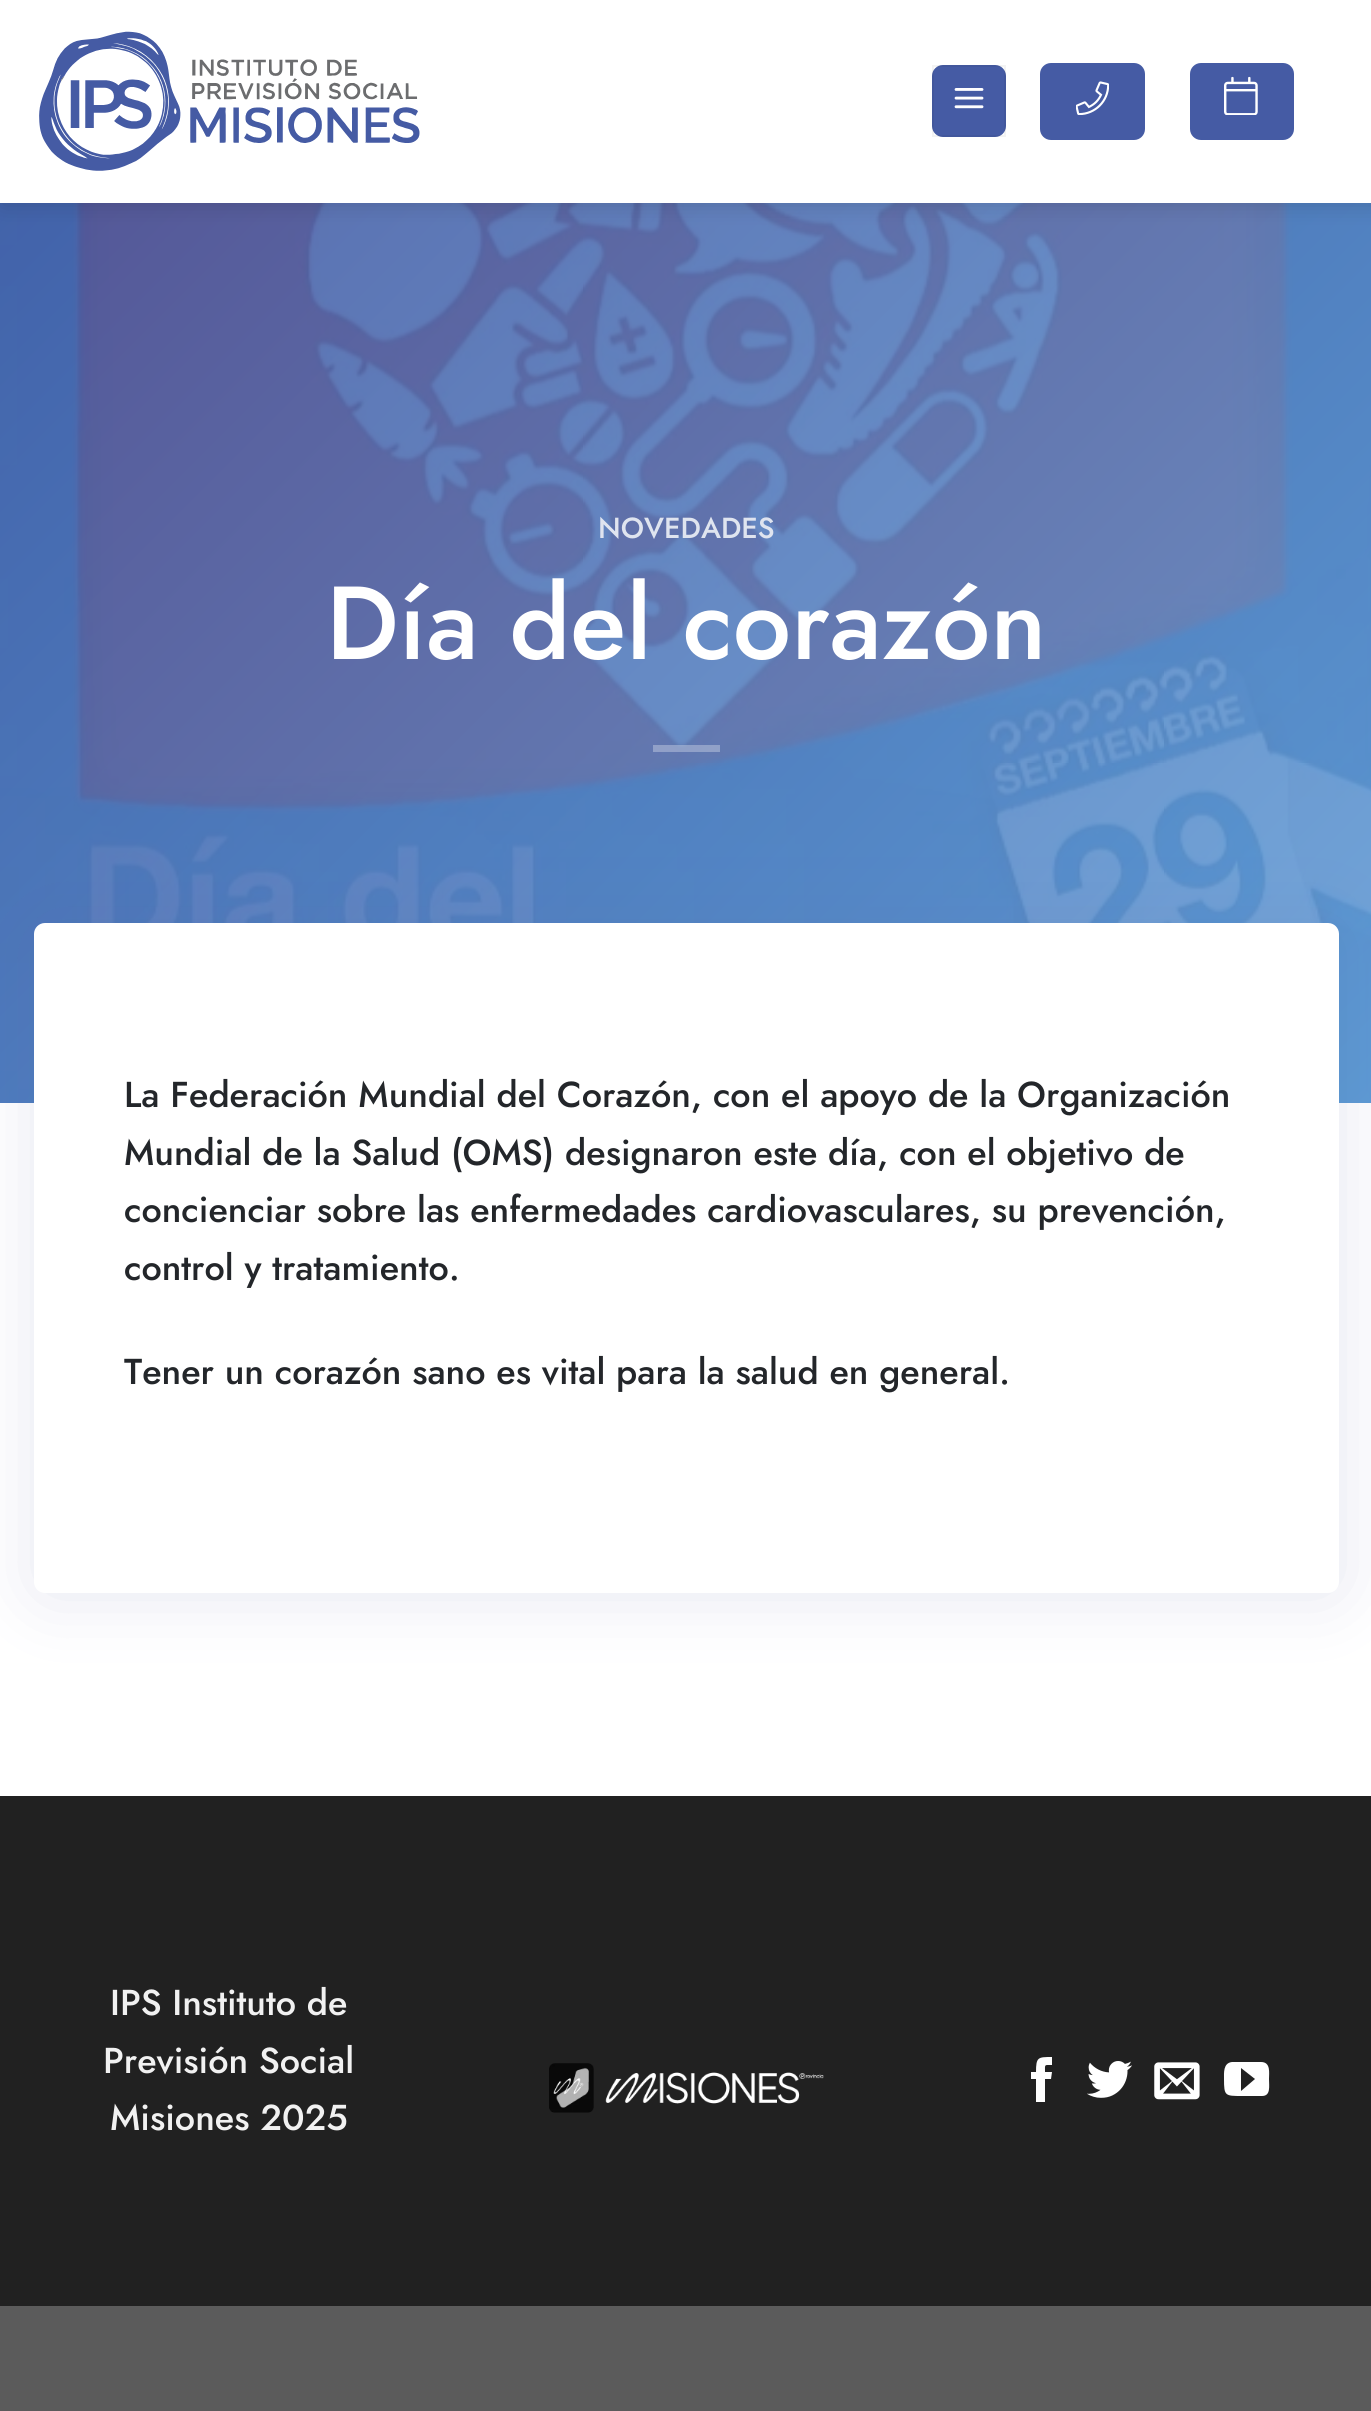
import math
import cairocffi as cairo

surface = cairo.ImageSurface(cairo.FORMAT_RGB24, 1371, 2411)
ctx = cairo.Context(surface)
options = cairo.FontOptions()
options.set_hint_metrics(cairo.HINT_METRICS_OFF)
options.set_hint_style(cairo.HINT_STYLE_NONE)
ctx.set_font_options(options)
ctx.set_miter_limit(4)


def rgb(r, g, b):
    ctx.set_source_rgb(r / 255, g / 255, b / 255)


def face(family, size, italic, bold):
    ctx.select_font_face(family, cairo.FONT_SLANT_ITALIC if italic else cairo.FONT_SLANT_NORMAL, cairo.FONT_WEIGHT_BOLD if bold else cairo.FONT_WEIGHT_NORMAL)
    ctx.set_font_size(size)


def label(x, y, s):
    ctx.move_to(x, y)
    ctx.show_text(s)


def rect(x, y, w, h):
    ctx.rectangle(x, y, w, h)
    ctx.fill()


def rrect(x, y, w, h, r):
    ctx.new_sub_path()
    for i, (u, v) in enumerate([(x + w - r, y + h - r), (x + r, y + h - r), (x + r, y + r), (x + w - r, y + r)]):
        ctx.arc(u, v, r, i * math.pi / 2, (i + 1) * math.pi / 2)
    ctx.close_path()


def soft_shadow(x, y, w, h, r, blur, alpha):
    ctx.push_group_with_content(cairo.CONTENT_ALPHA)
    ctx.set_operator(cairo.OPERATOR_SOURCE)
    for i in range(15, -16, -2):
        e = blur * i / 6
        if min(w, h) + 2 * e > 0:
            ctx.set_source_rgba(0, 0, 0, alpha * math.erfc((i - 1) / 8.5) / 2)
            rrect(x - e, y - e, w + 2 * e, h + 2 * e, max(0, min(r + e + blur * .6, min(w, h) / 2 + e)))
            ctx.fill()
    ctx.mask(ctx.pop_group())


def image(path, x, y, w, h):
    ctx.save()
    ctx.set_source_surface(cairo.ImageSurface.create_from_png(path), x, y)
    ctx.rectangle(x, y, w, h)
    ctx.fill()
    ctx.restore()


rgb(91, 91, 91)
ctx.paint()
rgb(255, 255, 255)
rect(0, 1103, 1371, 693)
image('image4.png', 0, 203, 1371, 900)
rgb(0, 0, 0)
soft_shadow(2, 2, 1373, 203, 0, 11, 0.15)
rgb(255, 255, 255)
rect(0, 0, 1371, 203)
image('image0.png', 39, 31, 381, 140)
rgb(69, 91, 164)
rrect(932, 65, 74, 72, 11)
ctx.fill()
ctx.rectangle(933, 66, 72, 70)
ctx.set_source_rgba(0, 0, 0, 0.05)
ctx.stroke()
image('image1.png', 954, 88, 30, 21)
rgb(69, 91, 164)
rrect(1040, 63, 105, 77, 11)
ctx.fill()
image('image2.png', 1076, 81, 33, 34)
rrect(1190, 63, 104, 77, 11)
ctx.fill()
image('image3.png', 1224, 76, 34, 39)
face('Jost Medium', 29, 0, 0)
rgb(223, 228, 239)
label(598, 538, 'NOVEDADES')
face('Jost Medium', 103.5, 0, 0)
rgb(255, 255, 255)
label(326, 659, 'Día del corazón')
ctx.set_source_rgba(1, 1, 1, 0.3)
rect(653, 745, 67, 7)
rgb(83, 95, 159)
soft_shadow(36, 925, 1305, 670, 11, 37, 0.15)
rgb(255, 255, 255)
rrect(34, 923, 1305, 670, 11)
ctx.fill()
face('Jost Medium', 36, 0, 0)
rgb(35, 38, 42)
label(124, 1107, 'La Federación Mundial del Corazón, con el apoyo de la Organización')
label(124, 1165, 'Mundial de la Salud (OMS) designaron este día, con el objetivo de')
label(124, 1222, 'concienciar sobre las enfermedades cardiovasculares, su prevención,')
label(124, 1280, 'control y tratamiento.')
label(124, 1384, 'Tener un corazón sano es vital para la salud en general.')
rgb(33, 33, 33)
rect(0, 1796, 1371, 510)
rgb(241, 241, 241)
label(110, 2015, 'IPS Instituto de')
label(103, 2073, 'Previsión Social')
label(110, 2130, 'Misiones 2025')
image('image5.png', 549, 2063, 275, 50)
rgb(255, 255, 255)
ctx.new_path()
ctx.move_to(1045, 2102)
ctx.line_to(1036, 2102)
ctx.line_to(1036, 2079)
ctx.line_to(1031, 2079)
ctx.line_to(1031, 2072)
ctx.line_to(1036, 2072)
ctx.curve_to(1036, 2057, 1038, 2057, 1052, 2057)
ctx.line_to(1052, 2065)
ctx.curve_to(1044, 2065, 1045, 2064, 1045, 2072)
ctx.line_to(1052, 2072)
ctx.line_to(1051, 2079)
ctx.line_to(1045, 2079)
ctx.close_path()
ctx.fill()
image('image6.png', 1087, 2061, 45, 37)
image('image7.png', 1154, 2062, 46, 38)
ctx.new_path()
ctx.move_to(1261, 2062)
ctx.line_to(1232, 2062)
ctx.curve_to(1223, 2063, 1224, 2073, 1224, 2079)
ctx.curve_to(1224, 2096, 1225, 2096, 1242, 2096)
ctx.line_to(1262, 2096)
ctx.curve_to(1271, 2096, 1269, 2086, 1269, 2079)
ctx.curve_to(1269, 2073, 1271, 2062, 1261, 2062)
ctx.close_path()
ctx.move_to(1241, 2091)
ctx.line_to(1241, 2068)
ctx.line_to(1255, 2079)
ctx.close_path()
ctx.fill()
surface.write_to_png('render.png')
